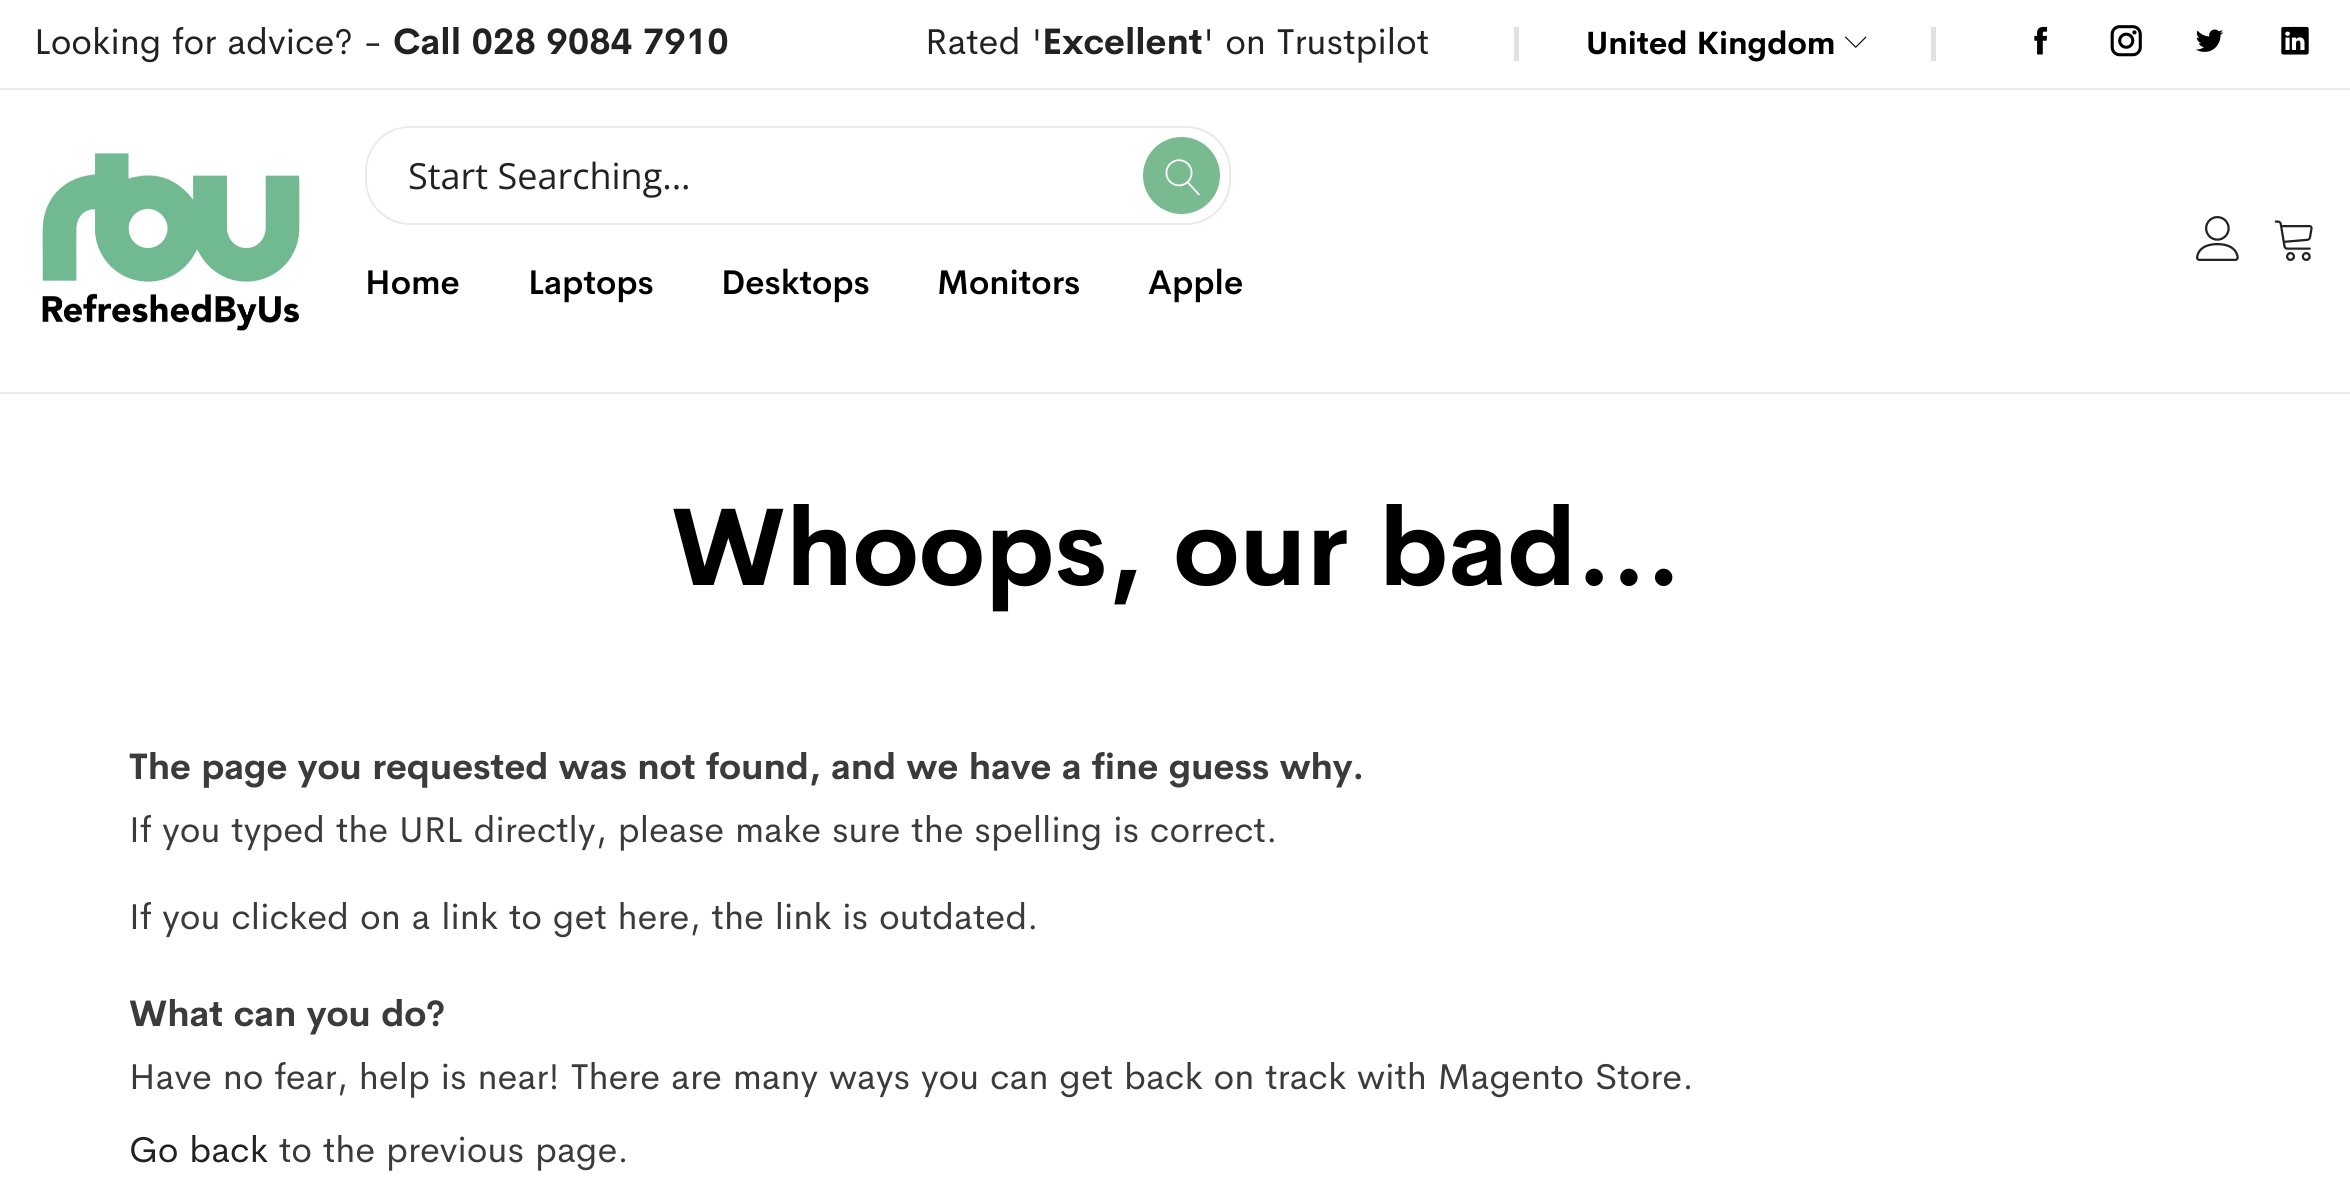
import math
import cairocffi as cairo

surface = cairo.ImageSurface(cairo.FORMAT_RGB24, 2350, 1193)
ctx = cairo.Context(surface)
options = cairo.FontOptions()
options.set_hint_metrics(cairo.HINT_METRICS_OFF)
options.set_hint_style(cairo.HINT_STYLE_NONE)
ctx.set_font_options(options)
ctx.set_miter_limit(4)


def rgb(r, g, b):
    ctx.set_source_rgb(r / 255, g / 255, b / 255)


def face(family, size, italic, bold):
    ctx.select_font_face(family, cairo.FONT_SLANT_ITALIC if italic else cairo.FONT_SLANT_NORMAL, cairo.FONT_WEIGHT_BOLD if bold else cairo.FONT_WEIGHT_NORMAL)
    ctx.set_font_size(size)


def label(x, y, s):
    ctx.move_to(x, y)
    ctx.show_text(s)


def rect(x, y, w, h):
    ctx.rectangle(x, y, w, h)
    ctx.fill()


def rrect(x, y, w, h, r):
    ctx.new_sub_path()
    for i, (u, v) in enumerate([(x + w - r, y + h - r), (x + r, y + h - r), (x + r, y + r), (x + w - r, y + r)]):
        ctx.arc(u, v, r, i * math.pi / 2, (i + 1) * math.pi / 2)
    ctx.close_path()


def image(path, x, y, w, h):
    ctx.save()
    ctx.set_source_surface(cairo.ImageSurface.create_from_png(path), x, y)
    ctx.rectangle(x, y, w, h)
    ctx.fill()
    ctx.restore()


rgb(255, 255, 255)
ctx.paint()
rgb(234, 234, 234)
rect(0, 392, 2350, 2)
rect(0, 88, 2350, 2)
face('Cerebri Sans', 36, 0, 0)
rgb(34, 34, 34)
label(34, 54, 'Looking for advice? -')
face('Cerebri Sans', 36, 0, 1)
label(393, 54, 'Call 028 9084 7910')
face('Cerebri Sans', 36, 0, 0)
label(925, 54, 'Rated \'')
face('Cerebri Sans', 36, 0, 1)
label(1042, 54, 'Excellent')
face('Cerebri Sans', 36, 0, 0)
label(1203, 54, '\' on Trustpilot')
rgb(225, 225, 225)
rect(1514, 27, 5, 34)
face('Cerebri Sans', 31.5, 0, 1)
rgb(0, 0, 0)
label(1586, 54, 'United Kingdom')
image('image0.png', 1845, 36, 22, 12)
rgb(225, 225, 225)
rect(1931, 27, 5, 34)
image('image1.png', 2034, 26, 14, 29)
image('image2.png', 2110, 25, 32, 32)
image('image3.png', 2196, 29, 28, 23)
image('image4.png', 2281, 26, 28, 29)
image('image5.png', 42, 153, 258, 178)
rrect(366, 127, 864, 97, 44)
rgb(234, 234, 234)
ctx.stroke()
face('Open Sans', 36, 0, 0)
rgb(34, 34, 34)
label(408, 189, 'Start Searching...')
rgb(121, 186, 144)
ctx.new_path()
ctx.arc(1181.5, 175.5, 38.5, 0, 2 * math.pi)
ctx.fill()
image('image6.png', 1165, 159, 35, 37)
face('Cerebri Sans SemiBold', 33.75, 0, 0)
rgb(0, 0, 0)
label(365, 294, 'Home')
label(528, 294, 'Laptops')
label(721, 294, 'Desktops')
label(937, 294, 'Monitors')
label(1148, 294, 'Apple')
image('image7.png', 2196, 216, 43, 45)
image('image8.png', 2274, 220, 39, 41)
face('Cerebri Sans', 108, 0, 1)
label(671, 585, 'Whoops, our bad...')
face('Cerebri Sans', 36, 0, 1)
rgb(59, 59, 59)
label(129, 779, 'The page you requested was not found, and we have a fine guess why.')
face('Cerebri Sans', 36, 0, 0)
label(129, 842, 'If you typed the URL directly, please make sure the spelling is correct.')
label(129, 929, 'If you clicked on a link to get here, the link is outdated.')
face('Cerebri Sans', 36, 0, 1)
label(129, 1026, 'What can you do?')
face('Cerebri Sans', 36, 0, 0)
label(129, 1089, 'Have no fear, help is near! There are many ways you can get back on track with Magento Store.')
rgb(34, 34, 34)
label(129, 1162, 'Go back')
rgb(59, 59, 59)
label(279, 1162, 'to the previous page.')
surface.write_to_png('render.png')
